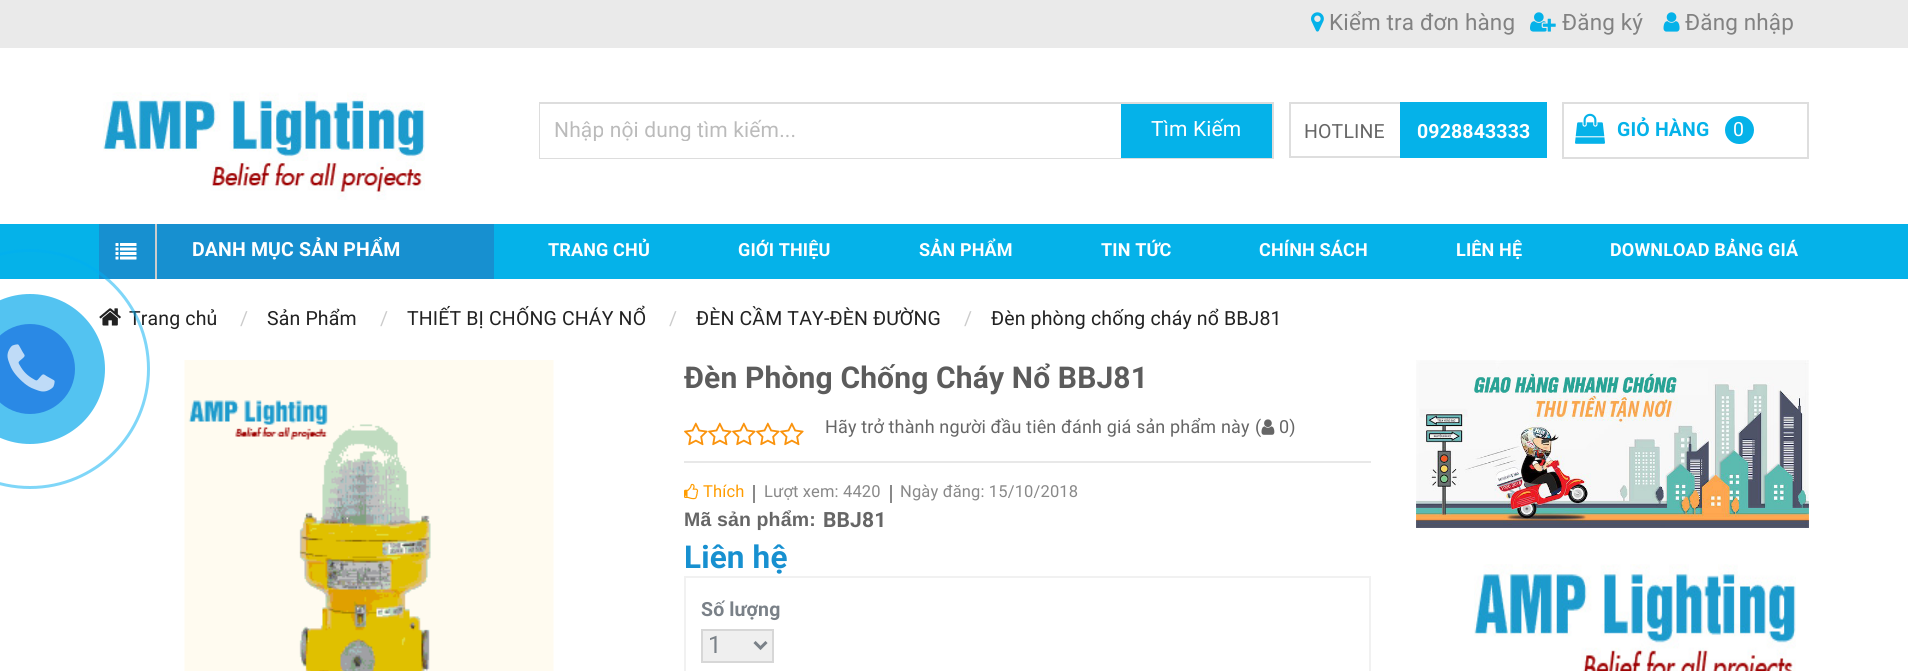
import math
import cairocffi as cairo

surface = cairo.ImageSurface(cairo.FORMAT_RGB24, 1908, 671)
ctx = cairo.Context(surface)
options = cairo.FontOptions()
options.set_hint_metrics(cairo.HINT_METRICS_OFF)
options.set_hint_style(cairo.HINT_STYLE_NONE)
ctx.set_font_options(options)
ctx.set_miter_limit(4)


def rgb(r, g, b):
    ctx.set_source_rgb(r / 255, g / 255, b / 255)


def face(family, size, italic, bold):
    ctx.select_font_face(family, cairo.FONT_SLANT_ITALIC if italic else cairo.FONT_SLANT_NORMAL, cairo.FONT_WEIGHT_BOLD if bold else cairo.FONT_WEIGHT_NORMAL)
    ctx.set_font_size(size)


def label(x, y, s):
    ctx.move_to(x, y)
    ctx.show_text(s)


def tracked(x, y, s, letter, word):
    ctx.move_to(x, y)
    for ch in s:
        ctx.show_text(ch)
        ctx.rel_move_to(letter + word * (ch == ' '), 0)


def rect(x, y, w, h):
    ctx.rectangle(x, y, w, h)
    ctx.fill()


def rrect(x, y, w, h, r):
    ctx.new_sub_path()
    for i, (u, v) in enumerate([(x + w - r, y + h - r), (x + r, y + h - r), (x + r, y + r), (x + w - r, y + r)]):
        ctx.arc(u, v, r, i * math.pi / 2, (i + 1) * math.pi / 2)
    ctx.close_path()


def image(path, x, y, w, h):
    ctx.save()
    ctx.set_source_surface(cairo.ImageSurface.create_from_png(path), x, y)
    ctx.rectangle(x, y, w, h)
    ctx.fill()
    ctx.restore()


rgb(255, 255, 255)
ctx.paint()
rgb(234, 234, 234)
rect(0, 0, 1908, 48)
image('image0.png', 1311, 12, 13, 20)
face('Roboto', 22.5, 0, 0)
rgb(130, 130, 130)
tracked(1329, 30, 'Kiểm tra đơn hàng', 0.15, 0)
image('image1.png', 1530, 12, 26, 20)
tracked(1562, 30, 'Đăng ký', 0.15, 0)
image('image2.png', 1663, 12, 17, 20)
tracked(1685, 30, 'Đăng nhập', 0.15, 0)
image('image3.png', 103, 92, 322, 108)
ctx.rectangle(540, 103, 733, 55)
rgb(221, 221, 221)
ctx.stroke()
rgb(255, 255, 255)
rect(540, 104, 581, 54)
ctx.save()
ctx.rectangle(555, 117, 545, 24)
ctx.clip()
face('Roboto', 21, 0, 0)
rgb(187, 187, 187)
tracked(554, 137, 'Nhập nội dung tìm kiếm...', 0.15, 0)
ctx.restore()
rgb(5, 178, 233)
rect(1121, 104, 151, 54)
face('Roboto', 21, 0, 0)
rgb(255, 255, 255)
tracked(1151, 136, 'Tìm Kiếm', 0.15, 0)
rgb(222, 222, 222)
rect(1289, 102, 111, 2)
rect(1289, 156, 111, 2)
rect(1289, 102, 2, 56)
face('Roboto', 19.5, 0, 0)
rgb(102, 102, 102)
tracked(1304, 138, 'HOTLINE', 0.15, 0)
rgb(5, 178, 233)
rect(1400, 102, 147, 56)
face('Roboto', 19.5, 0, 1)
rgb(255, 255, 255)
tracked(1417, 138, '0928843333', 0.15, 0)
ctx.rectangle(1563, 103, 245, 55)
rgb(222, 222, 222)
ctx.stroke()
image('image4.png', 1575, 113, 30, 31)
rgb(5, 178, 233)
tracked(1617, 136, 'GIỎ HÀNG', 0.15, 0)
rrect(1725, 116, 29, 28, 14)
ctx.fill()
face('Roboto', 19.5, 0, 0)
rgb(255, 255, 255)
tracked(1733, 136, '0', 0.15, 0)
rgb(5, 178, 233)
rect(0, 224, 1908, 55)
rgb(23, 144, 208)
rect(99, 224, 395, 55)
rgb(204, 204, 204)
rect(155, 224, 2, 55)
image('image5.png', 115, 243, 22, 17)
face('Roboto', 19.5, 0, 1)
rgb(255, 255, 255)
tracked(192, 256, 'DANH MỤC SẢN PHẨM', 0.15, 0)
face('Roboto', 18, 0, 1)
tracked(548, 256, 'TRANG CHỦ', 0.15, 0)
tracked(738, 256, 'GIỚI THIỆU', 0.15, 0)
tracked(919, 256, 'SẢN PHẨM', 0.15, 0)
tracked(1101, 256, 'TIN TỨC', 0.15, 0)
tracked(1259, 256, 'CHÍNH SÁCH', 0.15, 0)
tracked(1456, 256, 'LIÊN HỆ', 0.15, 0)
tracked(1610, 256, 'DOWNLOAD BẢNG GIÁ', 0.15, 0)
image('image7.png', 99, 308, 22, 18)
face('Roboto', 19.5, 0, 0)
rgb(34, 34, 34)
tracked(129, 325, 'Trang chủ', 0.15, 0)
ctx.new_path()
ctx.arc(30, 369, 118.5, 0, 2 * math.pi)
ctx.set_source_rgba(0, 0.686, 0.949, 0.5)
ctx.set_line_width(3)
ctx.stroke()
rgb(83, 195, 241)
ctx.arc(30, 369, 75, 0, 2 * math.pi)
ctx.fill()
rgb(42, 137, 229)
ctx.arc(30, 369, 45, 0, 2 * math.pi)
ctx.fill()
image('image6.png', 7, 344, 48, 48)
rgb(204, 204, 204)
tracked(240, 325, '/', 0.15, 0)
rgb(34, 34, 34)
tracked(267, 325, 'Sản Phẩm', 0.15, 0)
rgb(204, 204, 204)
tracked(380, 325, '/', 0.15, 0)
rgb(34, 34, 34)
tracked(407, 325, 'THIẾT BỊ CHỐNG CHÁY NỔ', 0.15, 0)
rgb(204, 204, 204)
tracked(669, 325, '/', 0.15, 0)
rgb(34, 34, 34)
tracked(696, 325, 'ĐÈN CẦM TAY-ĐÈN ĐƯỜNG', 0.15, 0)
rgb(204, 204, 204)
tracked(964, 325, '/', 0.15, 0)
rgb(34, 34, 34)
tracked(991, 325, 'Đèn phòng chống cháy nổ BBJ81', 0.15, 0)
image('image8.png', 184, 360, 370, 311)
face('Roboto', 30, 0, 1)
rgb(92, 92, 92)
tracked(684, 388, 'Đèn Phòng Chống Cháy Nổ BBJ81', 0.15, 0)
rgb(232, 232, 232)
rect(684, 461, 687, 2)
image('image9.png', 684, 422, 24, 24)
image('image9.png', 708, 422, 24, 24)
image('image9.png', 732, 422, 24, 24)
image('image9.png', 756, 422, 24, 24)
image('image9.png', 780, 422, 24, 24)
face('Roboto', 18, 0, 0)
rgb(102, 102, 102)
tracked(825, 433, 'Hãy trở thành người đầu tiên đánh giá sản phẩm này', 0.15, 0)
tracked(1255, 433, '(', 0.15, 0)
image('image10.png', 1261, 419, 14, 16)
tracked(1279, 433, '0)', 0.15, 0)
rgb(137, 137, 137)
rect(753, 485, 2, 18)
image('image11.png', 684, 483, 15, 17)
face('Roboto', 16.5, 0, 0)
rgb(255, 156, 0)
tracked(703, 497, 'Thích', 0.15, 0)
rgb(137, 137, 137)
rect(890, 485, 2, 18)
tracked(764, 497, 'Lượt xem: 4420', 0.15, 0)
tracked(900, 497, 'Ngày đăng: 15/10/2018', 0.15, 0)
face('Liberation Sans', 19.5, 0, 1)
rgb(102, 102, 102)
tracked(684, 526, 'Mã sản phẩm:', 0.15, 0)
face('Roboto', 21, 0, 1)
tracked(823, 527, 'BBJ81', 0.15, 0)
face('Roboto', 31.5, 0, 1)
rgb(23, 144, 208)
tracked(684, 568, 'Liên hệ', 0.15, 0)
ctx.rectangle(685, 577, 685, 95)
rgb(241, 241, 241)
ctx.set_line_width(2)
ctx.stroke()
face('Roboto', 19.5, 0, 1)
rgb(122, 129, 136)
tracked(701, 616, 'Số lượng', 0.15, 0)
rgb(239, 239, 239)
ctx.rectangle(702, 630, 71, 32)
ctx.fill_preserve()
rgb(215, 215, 215)
ctx.stroke()
ctx.new_path()
ctx.move_to(754.5, 642)
ctx.line_to(760.5, 648)
ctx.line_to(766.5, 642)
rgb(122, 129, 136)
ctx.set_line_width(3)
ctx.stroke()
face('Roboto', 24, 0, 0)
label(708, 653, '1')
image('image12.png', 1416, 360, 393, 168)
image('image13.png', 1474, 564, 322, 107)
surface.write_to_png('render.png')
